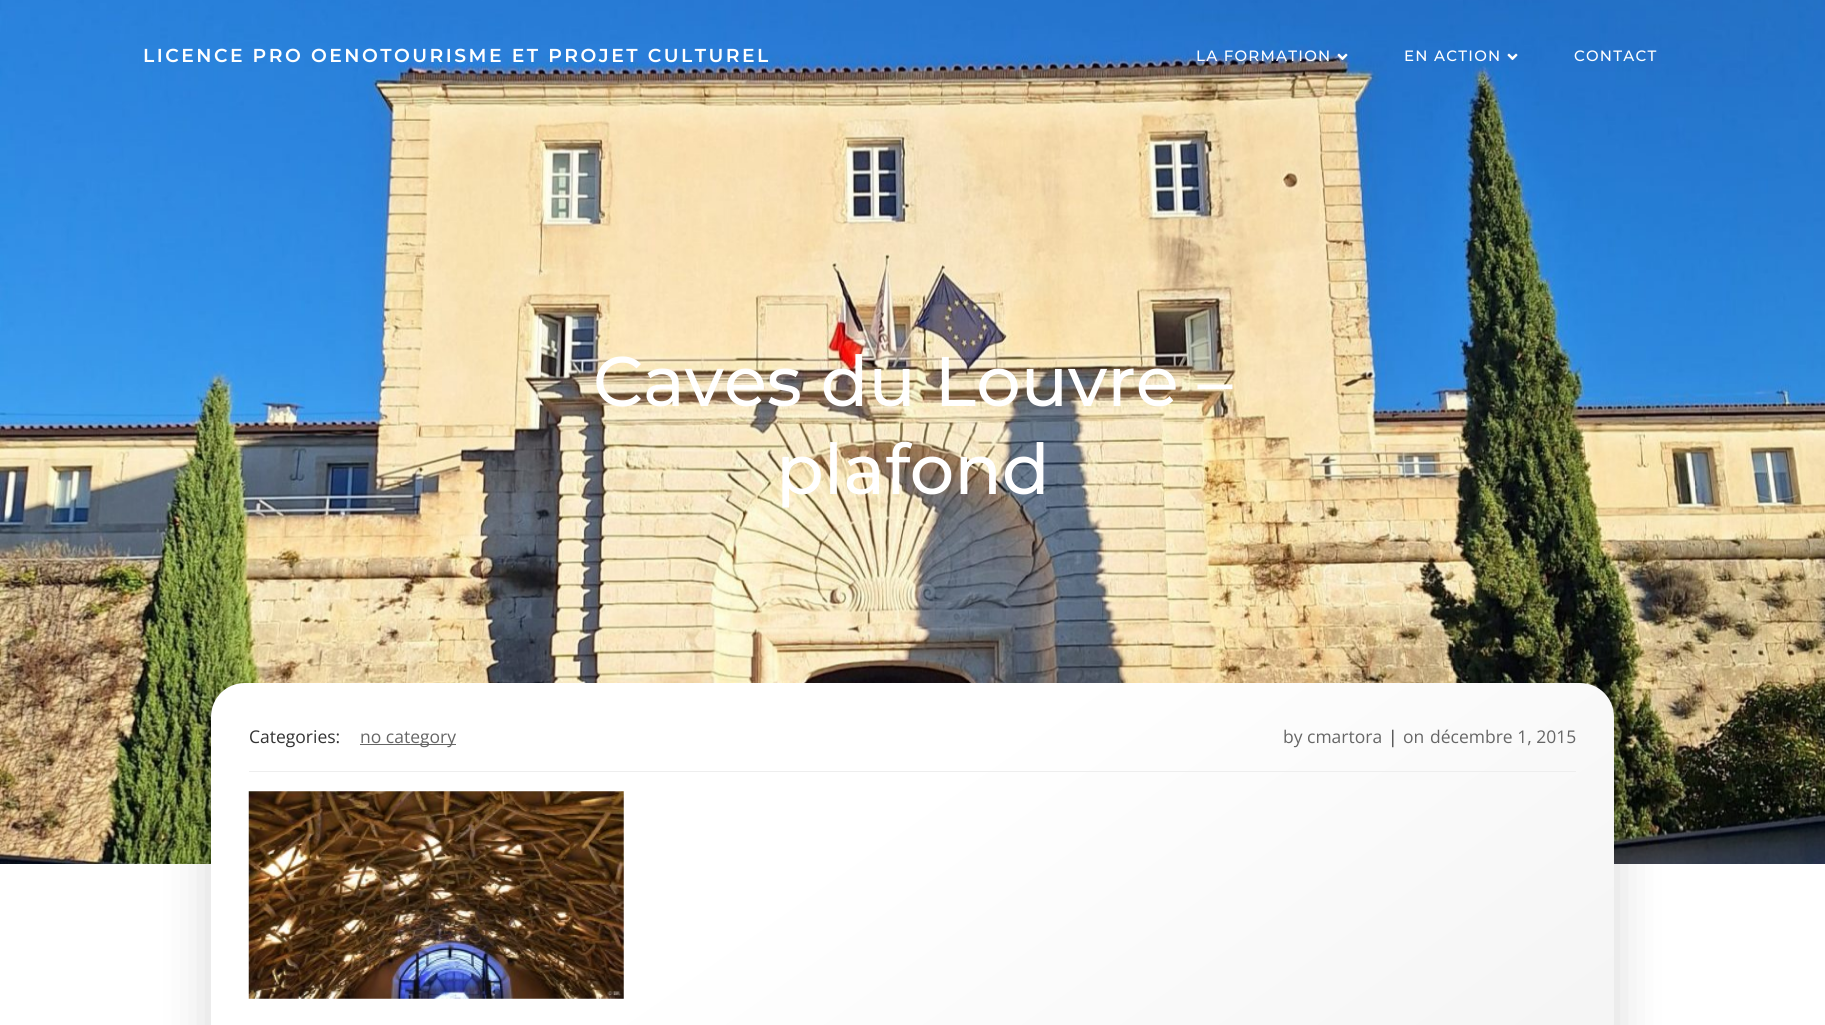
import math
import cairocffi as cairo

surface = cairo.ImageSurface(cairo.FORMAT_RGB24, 1825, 1025)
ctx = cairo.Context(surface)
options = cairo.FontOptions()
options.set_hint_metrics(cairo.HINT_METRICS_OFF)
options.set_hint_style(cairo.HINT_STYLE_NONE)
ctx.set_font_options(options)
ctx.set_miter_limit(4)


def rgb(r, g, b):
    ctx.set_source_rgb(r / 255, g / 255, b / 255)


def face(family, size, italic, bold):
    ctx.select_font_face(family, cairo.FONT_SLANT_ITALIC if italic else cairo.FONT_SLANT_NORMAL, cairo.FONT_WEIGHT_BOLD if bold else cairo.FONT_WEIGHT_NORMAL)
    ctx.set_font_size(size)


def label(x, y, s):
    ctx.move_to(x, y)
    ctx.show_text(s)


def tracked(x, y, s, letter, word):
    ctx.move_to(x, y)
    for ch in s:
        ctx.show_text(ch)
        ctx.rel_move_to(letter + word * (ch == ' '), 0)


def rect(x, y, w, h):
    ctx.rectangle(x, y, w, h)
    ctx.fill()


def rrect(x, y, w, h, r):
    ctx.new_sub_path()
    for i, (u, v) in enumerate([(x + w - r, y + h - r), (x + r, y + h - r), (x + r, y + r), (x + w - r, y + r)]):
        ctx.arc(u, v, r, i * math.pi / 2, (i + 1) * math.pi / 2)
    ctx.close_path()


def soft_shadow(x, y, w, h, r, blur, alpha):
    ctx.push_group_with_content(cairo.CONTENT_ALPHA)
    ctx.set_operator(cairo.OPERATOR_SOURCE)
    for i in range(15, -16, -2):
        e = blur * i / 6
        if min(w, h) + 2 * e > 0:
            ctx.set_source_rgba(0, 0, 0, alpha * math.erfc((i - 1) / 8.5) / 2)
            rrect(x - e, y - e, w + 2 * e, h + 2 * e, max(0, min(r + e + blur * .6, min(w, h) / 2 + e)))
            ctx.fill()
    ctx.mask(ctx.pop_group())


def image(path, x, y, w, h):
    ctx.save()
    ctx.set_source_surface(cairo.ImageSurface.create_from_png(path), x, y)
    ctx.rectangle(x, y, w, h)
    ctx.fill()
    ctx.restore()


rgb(255, 255, 255)
ctx.paint()
image('image2.png', 0, 0, 1825, 864)
face('Montserrat SemiBold', 18.75, 0, 0)
rgb(255, 255, 255)
tracked(143, 62, 'LICENCE PRO OENOTOURISME ET PROJET CULTUREL', 2.5, 0)
face('Montserrat Medium', 15, 0, 0)
tracked(1196, 61, 'LA FORMATION', 1.25, 0)
image('image0.png', 1337, 53, 11, 8)
tracked(1404, 61, 'EN ACTION', 1.25, 0)
image('image1.png', 1507, 53, 11, 8)
tracked(1574, 61, 'CONTACT', 1.25, 0)
face('Montserrat Medium', 70, 0, 0)
label(593, 406, 'Caves du Louvre –')
label(776, 494, 'plafond')
ctx.save()
ctx.rectangle(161, 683, 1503, 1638)
ctx.clip()
rgb(0, 0, 0)
soft_shadow(209, 705, 1407, 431, 36, 25, 0.15)
ctx.restore()
gradient = cairo.LinearGradient(578, 426, 1247, 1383)
gradient.add_color_stop_rgba(0.42, 1, 1, 1, 1)
gradient.add_color_stop_rgba(1, 0.953, 0.953, 0.953, 1)
ctx.set_source(gradient)
ctx.new_path()
ctx.move_to(245, 683)
ctx.line_to(1580, 683)
ctx.curve_to(1599, 683, 1614, 698, 1614, 717)
ctx.line_to(1614, 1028)
ctx.curve_to(1614, 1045, 1600, 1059, 1583, 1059)
ctx.line_to(242, 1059)
ctx.curve_to(225, 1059, 211, 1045, 211, 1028)
ctx.line_to(211, 717)
ctx.curve_to(211, 698, 226, 683, 245, 683)
ctx.close_path()
ctx.fill()
rgb(238, 238, 238)
rect(249, 771, 1327, 1)
face('Open Sans', 17.5, 0, 0)
rgb(51, 51, 51)
label(249, 743, 'Categories:')
rgb(102, 102, 102)
rect(360, 744, 96, 1)
label(360, 743, 'no category')
label(1283, 743, 'by')
label(1307, 743, 'cmartora')
rgb(51, 51, 51)
label(1388, 743, '|')
rgb(102, 102, 102)
label(1403, 743, 'on')
label(1430, 743, 'décembre 1, 2015')
image('image3.png', 248, 791, 376, 208)
surface.write_to_png('render.png')
